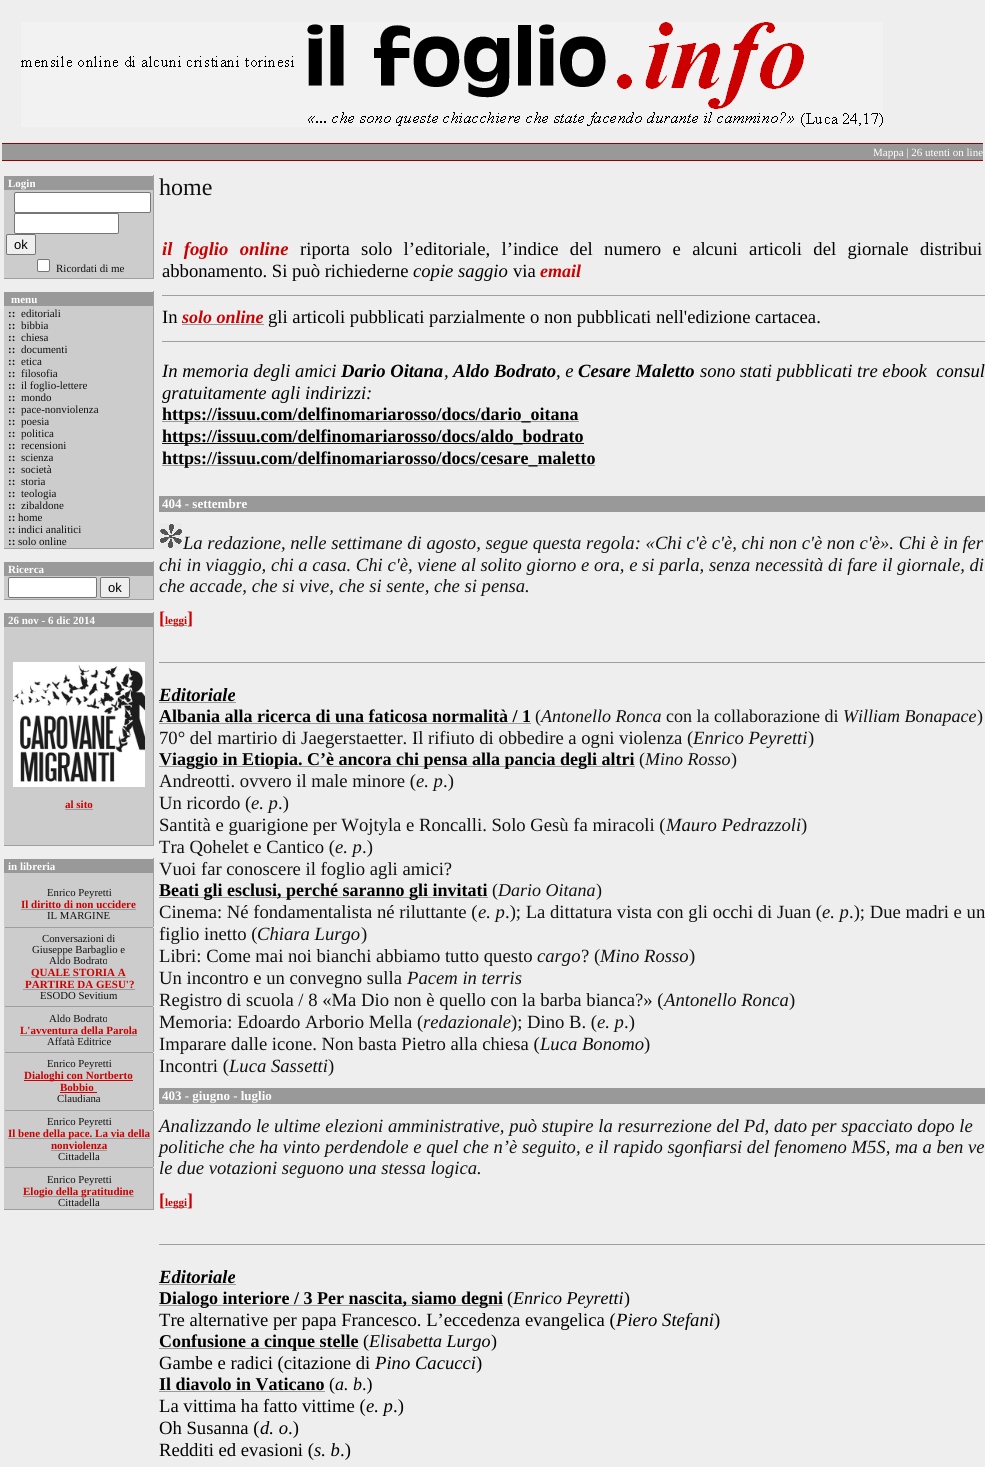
import math
import cairocffi as cairo

surface = cairo.ImageSurface(cairo.FORMAT_RGB24, 985, 1467)
ctx = cairo.Context(surface)
options = cairo.FontOptions()
options.set_hint_metrics(cairo.HINT_METRICS_OFF)
options.set_hint_style(cairo.HINT_STYLE_NONE)
ctx.set_font_options(options)
ctx.set_miter_limit(4)


def rgb(r, g, b):
    ctx.set_source_rgb(r / 255, g / 255, b / 255)


def face(family, size, italic, bold):
    ctx.select_font_face(family, cairo.FONT_SLANT_ITALIC if italic else cairo.FONT_SLANT_NORMAL, cairo.FONT_WEIGHT_BOLD if bold else cairo.FONT_WEIGHT_NORMAL)
    ctx.set_font_size(size)


def label(x, y, s):
    ctx.move_to(x, y)
    ctx.show_text(s)


def tracked(x, y, s, letter, word):
    ctx.move_to(x, y)
    for ch in s:
        ctx.show_text(ch)
        ctx.rel_move_to(letter + word * (ch == ' '), 0)


def rect(x, y, w, h):
    ctx.rectangle(x, y, w, h)
    ctx.fill()


def rrect(x, y, w, h, r):
    ctx.new_sub_path()
    for i, (u, v) in enumerate([(x + w - r, y + h - r), (x + r, y + h - r), (x + r, y + r), (x + w - r, y + r)]):
        ctx.arc(u, v, r, i * math.pi / 2, (i + 1) * math.pi / 2)
    ctx.close_path()


def image(path, x, y, w, h):
    ctx.save()
    ctx.set_source_surface(cairo.ImageSurface.create_from_png(path), x, y)
    ctx.rectangle(x, y, w, h)
    ctx.fill()
    ctx.restore()


rgb(238, 238, 238)
ctx.paint()
image('image0.png', 21, 22, 862, 105)
rgb(153, 0, 0)
rect(2, 143, 981, 1)
rect(2, 160, 981, 1)
rgb(153, 153, 153)
rect(2, 144, 981, 16)
face('Liberation Serif', 11, 0, 0)
rgb(255, 255, 255)
label(873, 156, 'Mappa | 26 utenti on line')
rgb(159, 159, 159)
rect(153, 175, 1, 104)
rect(3, 278, 151, 1)
rgb(238, 238, 238)
rect(3, 278, 1, 1)
rgb(153, 153, 153)
rect(4, 176, 149, 14)
face('Liberation Serif', 11, 0, 1)
rgb(255, 255, 255)
label(8, 187, 'Login')
rgb(204, 204, 204)
rect(4, 190, 149, 88)
rgb(255, 255, 255)
rrect(14.5, 192.5, 136, 20, 1.5)
ctx.fill_preserve()
rgb(118, 118, 118)
ctx.set_line_width(1)
ctx.stroke()
rgb(255, 255, 255)
rrect(14.5, 213.5, 104, 20, 1.5)
ctx.fill_preserve()
rgb(118, 118, 118)
ctx.stroke()
rgb(239, 239, 239)
rrect(6.5, 234.5, 29, 20, 1.5)
ctx.fill_preserve()
rgb(118, 118, 118)
ctx.stroke()
face('Liberation Sans', 13, 0, 0)
rgb(0, 0, 0)
label(14, 249, 'ok')
rgb(255, 255, 255)
rrect(37.5, 259.5, 12, 12, 1.5)
ctx.fill_preserve()
rgb(118, 118, 118)
ctx.stroke()
face('Liberation Serif', 11, 0, 0)
rgb(17, 17, 17)
label(56, 272, 'Ricordati di me')
rgb(159, 159, 159)
rect(153, 291, 1, 258)
rect(3, 548, 151, 1)
rgb(238, 238, 238)
rect(3, 548, 1, 1)
rgb(153, 153, 153)
rect(4, 292, 149, 14)
face('Liberation Serif', 11, 0, 1)
rgb(255, 255, 255)
label(11, 303, 'menu')
rgb(204, 204, 204)
rect(4, 306, 149, 242)
rgb(17, 17, 17)
label(8, 317, '::')
face('Liberation Serif', 11, 0, 0)
label(21, 317, 'editoriali')
face('Liberation Serif', 11, 0, 1)
label(8, 329, '::')
face('Liberation Serif', 11, 0, 0)
label(21, 329, 'bibbia')
face('Liberation Serif', 11, 0, 1)
label(8, 341, '::')
face('Liberation Serif', 11, 0, 0)
label(21, 341, 'chiesa')
face('Liberation Serif', 11, 0, 1)
label(8, 353, '::')
face('Liberation Serif', 11, 0, 0)
label(21, 353, 'documenti')
face('Liberation Serif', 11, 0, 1)
label(8, 365, '::')
face('Liberation Serif', 11, 0, 0)
label(21, 365, 'etica')
face('Liberation Serif', 11, 0, 1)
label(8, 377, '::')
face('Liberation Serif', 11, 0, 0)
label(21, 377, 'filosofia')
face('Liberation Serif', 11, 0, 1)
label(8, 389, '::')
face('Liberation Serif', 11, 0, 0)
label(21, 389, 'il foglio-lettere')
face('Liberation Serif', 11, 0, 1)
label(8, 401, '::')
face('Liberation Serif', 11, 0, 0)
label(21, 401, 'mondo')
face('Liberation Serif', 11, 0, 1)
label(8, 413, '::')
face('Liberation Serif', 11, 0, 0)
label(21, 413, 'pace-nonviolenza')
face('Liberation Serif', 11, 0, 1)
label(8, 425, '::')
face('Liberation Serif', 11, 0, 0)
label(21, 425, 'poesia')
face('Liberation Serif', 11, 0, 1)
label(8, 437, '::')
face('Liberation Serif', 11, 0, 0)
label(21, 437, 'politica')
face('Liberation Serif', 11, 0, 1)
label(8, 449, '::')
face('Liberation Serif', 11, 0, 0)
label(21, 449, 'recensioni')
face('Liberation Serif', 11, 0, 1)
label(8, 461, '::')
face('Liberation Serif', 11, 0, 0)
label(21, 461, 'scienza')
face('Liberation Serif', 11, 0, 1)
label(8, 473, '::')
face('Liberation Serif', 11, 0, 0)
label(21, 473, 'società')
face('Liberation Serif', 11, 0, 1)
label(8, 485, '::')
face('Liberation Serif', 11, 0, 0)
label(21, 485, 'storia')
face('Liberation Serif', 11, 0, 1)
label(8, 497, '::')
face('Liberation Serif', 11, 0, 0)
label(21, 497, 'teologia')
face('Liberation Serif', 11, 0, 1)
label(8, 509, '::')
face('Liberation Serif', 11, 0, 0)
label(21, 509, 'zibaldone')
face('Liberation Serif', 11, 0, 1)
label(8, 521, '::')
face('Liberation Serif', 11, 0, 0)
label(18, 521, 'home')
face('Liberation Serif', 11, 0, 1)
label(8, 533, '::')
face('Liberation Serif', 11, 0, 0)
label(18, 533, 'indici analitici')
face('Liberation Serif', 11, 0, 1)
label(8, 545, '::')
face('Liberation Serif', 11, 0, 0)
label(18, 545, 'solo online')
rgb(159, 159, 159)
rect(153, 561, 1, 39)
rect(3, 599, 151, 1)
rgb(238, 238, 238)
rect(3, 599, 1, 1)
rgb(153, 153, 153)
rect(4, 562, 149, 14)
face('Liberation Serif', 11, 0, 1)
rgb(255, 255, 255)
label(8, 573, 'Ricerca')
rgb(204, 204, 204)
rect(4, 576, 149, 23)
rgb(255, 255, 255)
rrect(8.5, 577.5, 88, 20, 1.5)
ctx.fill_preserve()
rgb(118, 118, 118)
ctx.stroke()
rgb(239, 239, 239)
rrect(100.5, 577.5, 29, 20, 1.5)
ctx.fill_preserve()
rgb(118, 118, 118)
ctx.stroke()
face('Liberation Sans', 13, 0, 0)
rgb(0, 0, 0)
label(108, 592, 'ok')
rgb(159, 159, 159)
rect(153, 612, 1, 234)
rect(3, 845, 151, 1)
rgb(238, 238, 238)
rect(3, 845, 1, 1)
rgb(153, 153, 153)
rect(4, 613, 149, 14)
face('Liberation Serif', 11, 0, 1)
rgb(255, 255, 255)
label(8, 624, '26 nov - 6 dic 2014')
rgb(204, 204, 204)
rect(4, 627, 149, 218)
image('image1.png', 13, 662, 132, 125)
rgb(204, 0, 0)
label(65, 808, 'al sito')
rgb(153, 153, 153)
rect(65, 809, 28, 1)
rgb(159, 159, 159)
rect(153, 858, 1, 352)
rect(3, 1209, 151, 1)
rgb(238, 238, 238)
rect(3, 1209, 1, 1)
rgb(153, 153, 153)
rect(4, 859, 149, 14)
rgb(255, 255, 255)
label(8, 870, 'in libreria')
rgb(204, 204, 204)
rect(4, 873, 149, 336)
face('Liberation Serif', 10.75, 0, 0)
rgb(17, 17, 17)
label(47, 896, 'Enrico Peyretti')
face('Liberation Serif', 11, 0, 1)
rgb(204, 0, 0)
label(21, 908, 'Il diritto di non uccidere')
rgb(153, 153, 153)
rect(21, 909, 115, 1)
face('Liberation Serif', 10.75, 0, 0)
rgb(17, 17, 17)
label(47, 919, 'IL MARGINE')
rgb(159, 159, 159)
rect(5, 927, 149, 1)
rgb(238, 238, 238)
rect(153, 927, 1, 1)
rgb(17, 17, 17)
label(42, 942, 'Conversazioni di')
label(32, 953, 'Giuseppe Barbaglio e')
label(49, 964, 'Aldo Bodrato')
rgb(153, 153, 153)
rect(31, 977, 95, 1)
face('Liberation Serif', 11, 0, 1)
rgb(204, 0, 0)
label(31, 976, 'QUALE STORIA A')
label(25, 988, 'PARTIRE DA GESU\'?')
rgb(153, 153, 153)
rect(23, 989, 112, 1)
face('Liberation Serif', 10.75, 0, 0)
rgb(17, 17, 17)
label(40, 999, 'ESODO Sevitium')
rgb(159, 159, 159)
rect(5, 1006, 149, 1)
rgb(238, 238, 238)
rect(153, 1006, 1, 1)
rgb(17, 17, 17)
label(49, 1022, 'Aldo Bodrato')
face('Liberation Serif', 11, 0, 1)
rgb(204, 0, 0)
label(20, 1034, 'L\'avventura della Parola')
rgb(153, 153, 153)
rect(20, 1035, 117, 1)
face('Liberation Serif', 10.75, 0, 0)
rgb(17, 17, 17)
label(47, 1045, 'Affatà Editrice')
rgb(159, 159, 159)
rect(5, 1052, 149, 1)
rgb(238, 238, 238)
rect(153, 1052, 1, 1)
rgb(17, 17, 17)
label(47, 1067, 'Enrico Peyretti')
rgb(204, 0, 0)
rect(24, 1080, 109, 1)
face('Liberation Serif', 11, 0, 1)
label(24, 1079, 'Dialoghi con Nortberto')
label(60, 1091, 'Bobbio')
rect(60, 1092, 37, 1)
face('Liberation Serif', 10.75, 0, 0)
rgb(17, 17, 17)
label(57, 1102, 'Claudiana')
rgb(159, 159, 159)
rect(5, 1110, 149, 1)
rgb(238, 238, 238)
rect(153, 1110, 1, 1)
rgb(17, 17, 17)
label(47, 1125, 'Enrico Peyretti')
rgb(153, 153, 153)
rect(8, 1138, 142, 1)
face('Liberation Serif', 11, 0, 1)
rgb(204, 0, 0)
label(8, 1137, 'Il bene della pace. La via della')
label(51, 1149, 'nonviolenza')
rgb(153, 153, 153)
rect(51, 1150, 56, 1)
face('Liberation Serif', 10.75, 0, 0)
rgb(17, 17, 17)
label(58, 1160, 'Cittadella')
rgb(159, 159, 159)
rect(5, 1167, 149, 1)
rgb(238, 238, 238)
rect(153, 1167, 1, 1)
rgb(17, 17, 17)
label(47, 1183, 'Enrico Peyretti')
rgb(153, 153, 153)
rect(23, 1196, 111, 1)
face('Liberation Serif', 11, 0, 1)
rgb(204, 0, 0)
label(23, 1195, 'Elogio della gratitudine')
face('Liberation Serif', 10.75, 0, 0)
rgb(17, 17, 17)
label(58, 1206, 'Cittadella')
face('Liberation Serif', 24, 0, 0)
label(159, 195, 'home')
face('Liberation Serif', 18.65, 1, 1)
rgb(204, 0, 0)
tracked(162, 255, 'il foglio online', 0, 6.75)
face('Liberation Serif', 18.65, 0, 0)
rgb(0, 0, 0)
tracked(300, 255, 'riporta solo l’editoriale, l’indice del numero e alcuni articoli del giornale distribui', 0, 6.75)
label(162, 277, 'abbonamento. Si può richiederne')
face('Liberation Serif', 18.65, 1, 0)
label(413, 277, 'copie saggio')
face('Liberation Serif', 18.65, 0, 0)
label(513, 277, 'via')
face('Liberation Serif', 18, 1, 1)
rgb(204, 0, 0)
label(540, 277, 'email')
rgb(159, 159, 159)
rect(162, 295, 823, 1)
face('Liberation Serif', 18.65, 0, 0)
rgb(0, 0, 0)
label(162, 323, 'In')
face('Liberation Serif', 18, 1, 1)
rgb(204, 0, 0)
label(182, 323, 'solo online')
rgb(153, 153, 153)
rect(182, 324, 82, 1)
face('Liberation Serif', 18.65, 0, 0)
rgb(0, 0, 0)
label(268, 323, 'gli articoli pubblicati parzialmente o non pubblicati nell\'edizione cartacea.')
rgb(159, 159, 159)
rect(162, 341, 823, 1)
face('Liberation Serif', 18.65, 1, 0)
rgb(0, 0, 0)
label(162, 377, 'In memoria degli amici')
face('Liberation Serif', 18.65, 1, 1)
label(341, 377, 'Dario Oitana')
face('Liberation Serif', 18.65, 1, 0)
label(444, 377, ',')
face('Liberation Serif', 18.65, 1, 1)
label(453, 377, 'Aldo Bodrato')
face('Liberation Serif', 18.65, 1, 0)
label(556, 377, ', e')
face('Liberation Serif', 18.65, 1, 1)
label(578, 377, 'Cesare Maletto')
face('Liberation Serif', 18.65, 1, 0)
label(700, 377, 'sono stati pubblicati tre ebook  consul')
label(162, 399, 'gratuitamente agli indirizzi:')
rgb(153, 153, 153)
rect(162, 421, 417, 1)
face('Liberation Serif', 18, 0, 1)
rgb(0, 0, 0)
label(162, 420, 'https://issuu.com/delfinomariarosso/docs/dario_oitana')
rgb(17, 17, 17)
rect(162, 443, 422, 1)
rgb(0, 0, 0)
label(162, 442, 'https://issuu.com/delfinomariarosso/docs/aldo_bodrato')
rgb(153, 153, 153)
rect(162, 465, 433, 1)
rgb(0, 0, 0)
label(162, 464, 'https://issuu.com/delfinomariarosso/docs/cesare_maletto')
rgb(153, 153, 153)
rect(159, 496, 826, 16)
face('Liberation Serif', 13, 0, 1)
rgb(255, 255, 255)
label(162, 508, '404 - settembre')
image('image2.png', 159, 523, 23, 26)
face('Liberation Serif', 18.65, 1, 0)
rgb(17, 17, 17)
label(183, 549, 'La redazione, nelle settimane di agosto, segue questa regola: «Chi c\'è c\'è, chi non c\'è non c\'è». Chi è in fer')
label(159, 571, 'chi in viaggio, chi a casa. Chi c\'è, viene al solito giorno e ora, e si parla, senza necessità di fare il giornale, di')
label(159, 592, 'che accade, che si vive, che si sente, che si pensa.')
face('Liberation Serif', 18, 0, 1)
rgb(204, 0, 0)
label(159, 624, '[')
rgb(153, 153, 153)
rect(165, 625, 22, 1)
face('Liberation Serif', 11, 0, 1)
rgb(204, 0, 0)
label(165, 624, 'leggi')
face('Liberation Serif', 18, 0, 1)
label(187, 624, ']')
rgb(159, 159, 159)
rect(159, 662, 826, 1)
face('Liberation Serif', 18.65, 1, 1)
rgb(0, 0, 0)
label(159, 701, 'Editoriale')
rgb(153, 153, 153)
rect(159, 702, 77, 1)
face('Liberation Serif', 18, 0, 1)
rgb(0, 0, 0)
label(159, 722, 'Albania alla ricerca di una faticosa normalità / 1')
rgb(153, 153, 153)
rect(159, 723, 372, 1)
face('Liberation Serif', 18, 0, 0)
rgb(17, 17, 17)
label(535, 722, '(')
face('Liberation Serif', 18, 1, 0)
label(541, 722, 'Antonello Ronca')
face('Liberation Serif', 18, 0, 0)
label(666, 722, 'con la collaborazione di')
face('Liberation Serif', 18, 1, 0)
label(843, 722, 'William Bonapace')
face('Liberation Serif', 18, 0, 0)
label(977, 722, ')')
face('Liberation Serif', 18.65, 0, 0)
label(159, 744, '70° del martirio di Jaegerstaetter. Il rifiuto di obbedire a ogni violenza (')
face('Liberation Serif', 18.65, 1, 0)
label(693, 744, 'Enrico Peyretti')
face('Liberation Serif', 18.65, 0, 0)
label(808, 744, ')')
rgb(153, 153, 153)
rect(159, 766, 476, 1)
face('Liberation Serif', 18, 0, 1)
rgb(0, 0, 0)
label(159, 765, 'Viaggio in Etiopia. C’è ancora chi pensa alla pancia degli altri')
face('Liberation Serif', 18, 0, 0)
rgb(17, 17, 17)
label(639, 765, '(')
face('Liberation Serif', 18, 1, 0)
label(645, 765, 'Mino Rosso')
face('Liberation Serif', 18, 0, 0)
label(731, 765, ')')
face('Liberation Serif', 18.65, 0, 0)
label(159, 787, 'Andreotti. ovvero il male minore (')
face('Liberation Serif', 18.65, 1, 0)
label(416, 787, 'e. p')
face('Liberation Serif', 18.65, 0, 0)
label(443, 787, '.)')
label(159, 809, 'Un ricordo (')
face('Liberation Serif', 18.65, 1, 0)
label(251, 809, 'e. p')
face('Liberation Serif', 18.65, 0, 0)
label(278, 809, '.)')
label(159, 831, 'Santità e guarigione per Wojtyla e Roncalli. Solo Gesù fa miracoli (')
face('Liberation Serif', 18.65, 1, 0)
label(666, 831, 'Mauro Pedrazzoli')
face('Liberation Serif', 18.65, 0, 0)
label(801, 831, ')')
label(159, 853, 'Tra Qohelet e Cantico (')
face('Liberation Serif', 18.65, 1, 0)
label(335, 853, 'e. p')
face('Liberation Serif', 18.65, 0, 0)
label(362, 853, '.)')
label(159, 875, 'Vuoi far conoscere il foglio agli amici?')
rgb(153, 153, 153)
rect(159, 897, 329, 1)
face('Liberation Serif', 18, 0, 1)
rgb(0, 0, 0)
label(159, 896, 'Beati gli esclusi, perché saranno gli invitati')
face('Liberation Serif', 18, 0, 0)
rgb(17, 17, 17)
label(492, 896, '(')
face('Liberation Serif', 18, 1, 0)
label(498, 896, 'Dario Oitana')
face('Liberation Serif', 18, 0, 0)
label(596, 896, ')')
face('Liberation Serif', 18.65, 0, 0)
label(159, 918, 'Cinema: Né fondamentalista né riluttante (')
face('Liberation Serif', 18.65, 1, 0)
label(478, 918, 'e. p')
face('Liberation Serif', 18.65, 0, 0)
label(505, 918, '.); La dittatura vista con gli occhi di Juan (')
face('Liberation Serif', 18.65, 1, 0)
label(822, 918, 'e. p')
face('Liberation Serif', 18.65, 0, 0)
label(849, 918, '.); Due madri e un')
label(159, 940, 'figlio inetto (')
face('Liberation Serif', 18.65, 1, 0)
label(257, 940, 'Chiara Lurgo')
face('Liberation Serif', 18.65, 0, 0)
label(361, 940, ')')
label(159, 962, 'Libri: Come mai noi bianchi abbiamo tutto questo')
face('Liberation Serif', 18.65, 1, 0)
label(537, 962, 'cargo')
face('Liberation Serif', 18.65, 0, 0)
label(581, 962, '? (')
face('Liberation Serif', 18.65, 1, 0)
label(600, 962, 'Mino Rosso')
face('Liberation Serif', 18.65, 0, 0)
label(689, 962, ')')
label(159, 984, 'Un incontro e un convegno sulla')
face('Liberation Serif', 18.65, 1, 0)
label(407, 984, 'Pacem in terris')
face('Liberation Serif', 18.65, 0, 0)
label(159, 1006, 'Registro di scuola / 8 «Ma Dio non è quello con la barba bianca?» (')
face('Liberation Serif', 18.65, 1, 0)
label(664, 1006, 'Antonello Ronca')
face('Liberation Serif', 18.65, 0, 0)
label(789, 1006, ')')
label(159, 1028, 'Memoria: Edoardo Arborio Mella (')
face('Liberation Serif', 18.65, 1, 0)
label(423, 1028, 'redazionale')
face('Liberation Serif', 18.65, 0, 0)
label(511, 1028, '); Dino B. (')
face('Liberation Serif', 18.65, 1, 0)
label(597, 1028, 'e. p')
face('Liberation Serif', 18.65, 0, 0)
label(624, 1028, '.)')
label(159, 1050, 'Imparare dalle icone. Non basta Pietro alla chiesa (')
face('Liberation Serif', 18.65, 1, 0)
label(540, 1050, 'Luca Bonomo')
face('Liberation Serif', 18.65, 0, 0)
label(644, 1050, ')')
label(159, 1072, 'Incontri (')
face('Liberation Serif', 18.65, 1, 0)
label(229, 1072, 'Luca Sassetti')
face('Liberation Serif', 18.65, 0, 0)
label(328, 1072, ')')
rgb(153, 153, 153)
rect(159, 1088, 826, 16)
face('Liberation Serif', 13, 0, 1)
rgb(255, 255, 255)
label(162, 1100, '403 - giugno - luglio')
face('Liberation Serif', 18.65, 1, 0)
rgb(17, 17, 17)
label(159, 1132, 'Analizzando le ultime elezioni amministrative, può stupire la resurrezione del Pd, dato per spacciato dopo le')
label(159, 1153, 'politiche che ha vinto perdendole e quel che n’è seguito, e il rapido sgonfiarsi del fenomeno M5S, ma a ben ve')
label(159, 1174, 'le due votazioni seguono una stessa logica.')
face('Liberation Serif', 18, 0, 1)
rgb(204, 0, 0)
label(159, 1206, '[')
rgb(153, 153, 153)
rect(165, 1207, 22, 1)
face('Liberation Serif', 11, 0, 1)
rgb(204, 0, 0)
label(165, 1206, 'leggi')
face('Liberation Serif', 18, 0, 1)
label(187, 1206, ']')
rgb(159, 159, 159)
rect(159, 1244, 826, 1)
face('Liberation Serif', 18.65, 1, 1)
rgb(0, 0, 0)
label(159, 1283, 'Editoriale')
rgb(153, 153, 153)
rect(159, 1284, 77, 1)
rect(159, 1305, 344, 1)
face('Liberation Serif', 18, 0, 1)
rgb(0, 0, 0)
label(159, 1304, 'Dialogo interiore / 3 Per nascita, siamo degni')
face('Liberation Serif', 18, 0, 0)
label(507, 1304, '(')
face('Liberation Serif', 18, 1, 0)
label(513, 1304, 'Enrico Peyretti')
face('Liberation Serif', 18, 0, 0)
label(624, 1304, ')')
face('Liberation Serif', 18.65, 0, 0)
label(159, 1326, 'Tre alternative per papa Francesco. L’eccedenza evangelica (')
face('Liberation Serif', 18.65, 1, 0)
label(616, 1326, 'Piero Stefani')
face('Liberation Serif', 18.65, 0, 0)
label(714, 1326, ')')
rgb(153, 153, 153)
rect(159, 1348, 200, 1)
face('Liberation Serif', 18, 0, 1)
rgb(0, 0, 0)
label(159, 1347, 'Confusione a cinque stelle')
face('Liberation Serif', 18, 0, 0)
label(363, 1347, '(')
face('Liberation Serif', 18, 1, 0)
label(369, 1347, 'Elisabetta Lurgo')
face('Liberation Serif', 18, 0, 0)
label(491, 1347, ')')
face('Liberation Serif', 18.65, 0, 0)
label(159, 1369, 'Gambe e radici (citazione di')
face('Liberation Serif', 18.65, 1, 0)
label(375, 1369, 'Pino Cacucci')
face('Liberation Serif', 18.65, 0, 0)
label(476, 1369, ')')
face('Liberation Serif', 18, 0, 1)
label(159, 1390, 'Il diavolo in Vaticano')
rgb(153, 153, 153)
rect(159, 1391, 166, 1)
face('Liberation Serif', 18, 0, 0)
rgb(0, 0, 0)
label(329, 1390, '(')
face('Liberation Serif', 18, 1, 0)
label(335, 1390, 'a. b')
face('Liberation Serif', 18, 0, 0)
label(362, 1390, '.)')
face('Liberation Serif', 18.65, 0, 0)
label(159, 1412, 'La vittima ha fatto vittime (')
face('Liberation Serif', 18.65, 1, 0)
label(366, 1412, 'e. p')
face('Liberation Serif', 18.65, 0, 0)
label(393, 1412, '.)')
label(159, 1434, 'Oh Susanna (')
face('Liberation Serif', 18.65, 1, 0)
label(260, 1434, 'd. o')
face('Liberation Serif', 18.65, 0, 0)
label(288, 1434, '.)')
label(159, 1456, 'Redditi ed evasioni (')
face('Liberation Serif', 18.65, 1, 0)
label(314, 1456, 's. b')
face('Liberation Serif', 18.65, 0, 0)
label(340, 1456, '.)')
surface.write_to_png('render.png')
